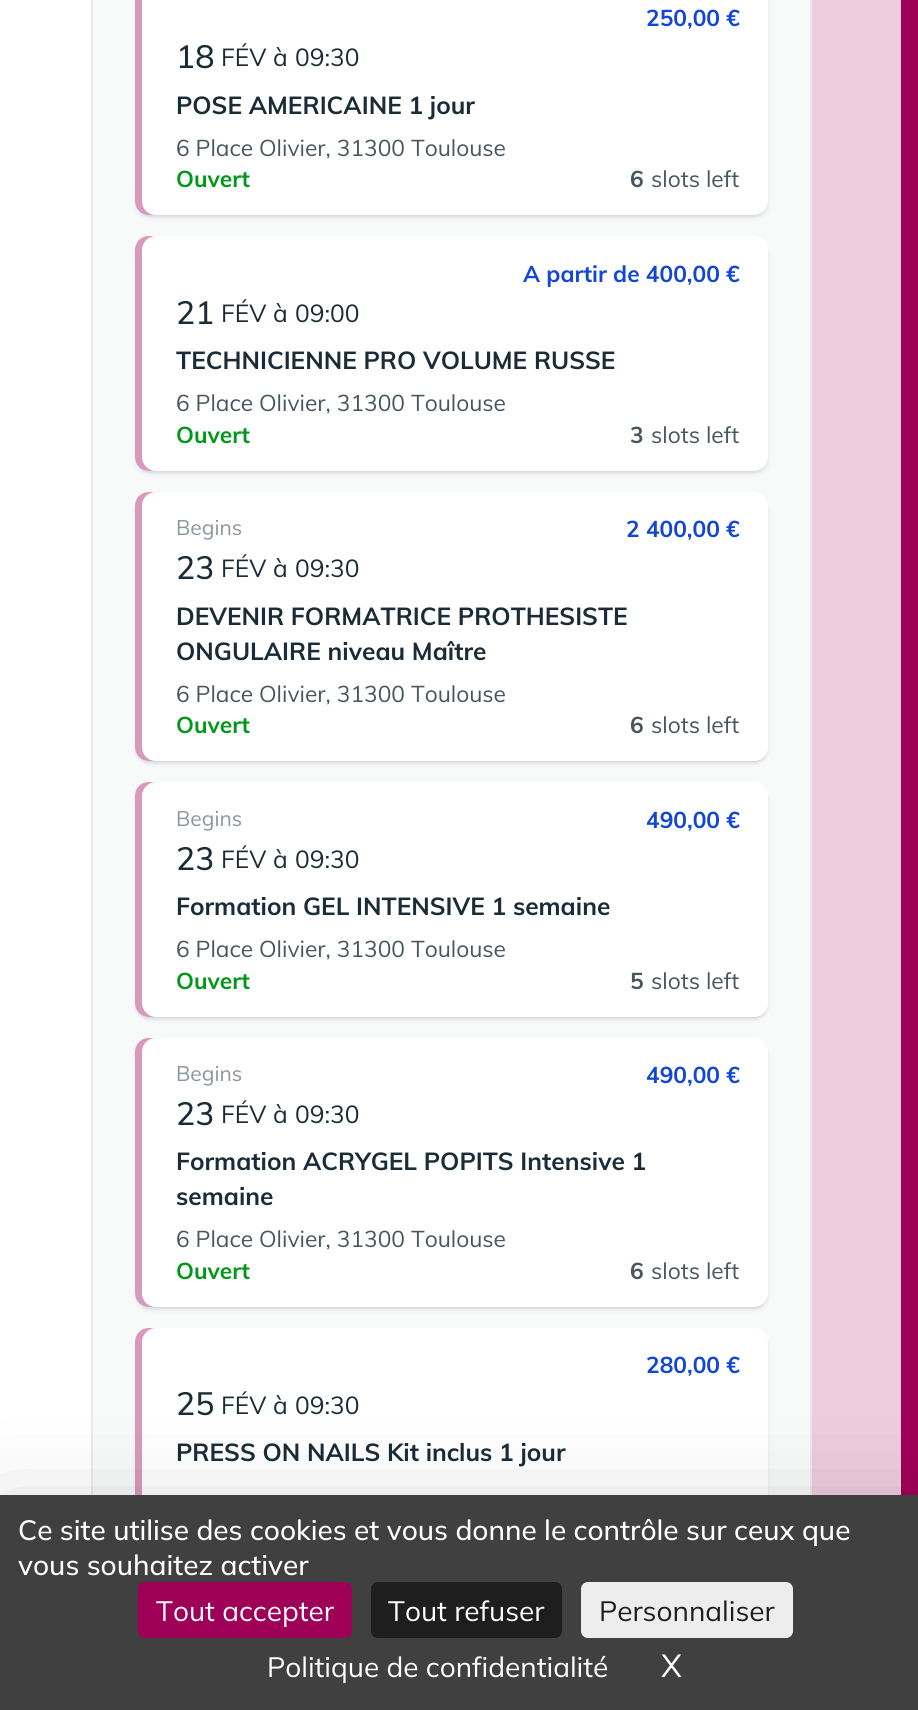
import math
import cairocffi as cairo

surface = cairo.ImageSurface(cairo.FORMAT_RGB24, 918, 1710)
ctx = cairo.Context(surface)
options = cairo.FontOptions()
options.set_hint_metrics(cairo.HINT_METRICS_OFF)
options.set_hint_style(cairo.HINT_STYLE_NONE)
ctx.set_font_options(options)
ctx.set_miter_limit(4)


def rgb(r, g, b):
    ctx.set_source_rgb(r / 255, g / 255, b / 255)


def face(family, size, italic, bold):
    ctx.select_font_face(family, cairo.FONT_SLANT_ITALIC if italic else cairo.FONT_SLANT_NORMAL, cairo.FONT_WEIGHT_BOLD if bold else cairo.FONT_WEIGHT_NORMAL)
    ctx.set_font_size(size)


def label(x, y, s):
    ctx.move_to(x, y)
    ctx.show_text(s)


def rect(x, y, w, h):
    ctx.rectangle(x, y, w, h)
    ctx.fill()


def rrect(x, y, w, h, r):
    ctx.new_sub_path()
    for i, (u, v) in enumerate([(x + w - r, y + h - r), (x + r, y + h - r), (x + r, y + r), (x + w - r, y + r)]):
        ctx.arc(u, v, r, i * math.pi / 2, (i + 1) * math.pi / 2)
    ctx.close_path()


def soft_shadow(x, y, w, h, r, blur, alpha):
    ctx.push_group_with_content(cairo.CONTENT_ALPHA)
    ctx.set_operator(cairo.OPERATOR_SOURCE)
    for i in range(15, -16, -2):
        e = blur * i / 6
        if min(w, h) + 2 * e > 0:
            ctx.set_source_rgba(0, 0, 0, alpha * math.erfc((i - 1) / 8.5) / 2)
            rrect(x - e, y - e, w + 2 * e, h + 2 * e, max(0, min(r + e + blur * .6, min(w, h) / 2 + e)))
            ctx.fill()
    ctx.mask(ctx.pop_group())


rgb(255, 255, 255)
ctx.paint()
rgb(236, 204, 222)
rect(812, 0, 89, 1495)
rgb(159, 0, 88)
rect(901, 0, 17, 1495)
ctx.rectangle(92, -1, 719, 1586)
ctx.set_source_rgba(0.102, 0.173, 0.216, 0.1)
ctx.stroke()
ctx.set_source_rgba(0.102, 0.173, 0.216, 0.03)
rect(93, 0, 717, 1495)
rgb(209, 213, 215)
soft_shadow(137, -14, 630, 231, 12, 2, 1)
rgb(255, 255, 255)
rrect(135, -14, 633, 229, 14)
ctx.fill()
rgb(217, 153, 188)
ctx.new_path()
ctx.move_to(149, -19)
ctx.curve_to(141, -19, 135, -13, 135, -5)
ctx.line_to(135, 201)
ctx.curve_to(135, 209, 141, 215, 149, 215)
ctx.line_to(156, 215)
ctx.curve_to(148, 215, 142, 209, 142, 201)
ctx.line_to(142, -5)
ctx.curve_to(142, -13, 148, -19, 156, -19)
ctx.close_path()
ctx.fill()
face('Mulish', 22.75, 0, 1)
rgb(18, 70, 214)
label(646, 26, '250,00 €')
face('Mulish Medium', 32, 0, 0)
rgb(26, 44, 55)
label(176, 68, '18')
face('Mulish', 24.5, 0, 0)
label(221, 66, 'FÉV')
label(273, 66, 'à')
label(295, 66, '09:30')
face('Mulish', 24.5, 0, 1)
label(176, 114, 'POSE AMERICAINE 1 jour')
face('Mulish', 22.75, 0, 0)
rgb(72, 86, 95)
label(176, 156, '6 Place Olivier, 31300 Toulouse')
face('Mulish', 22.75, 0, 1)
rgb(1, 151, 25)
label(176, 187, 'Ouvert')
rgb(72, 86, 95)
label(630, 187, '6')
face('Mulish', 22.75, 0, 0)
label(651, 187, 'slots left')
rgb(209, 213, 215)
soft_shadow(137, 242, 630, 231, 12, 2, 1)
rgb(255, 255, 255)
rrect(135, 236, 633, 235, 14)
ctx.fill()
rgb(217, 153, 188)
ctx.new_path()
ctx.move_to(149, 236)
ctx.curve_to(141, 236, 135, 242, 135, 250)
ctx.line_to(135, 457)
ctx.curve_to(135, 465, 141, 471, 149, 471)
ctx.line_to(156, 471)
ctx.curve_to(148, 471, 142, 464, 142, 457)
ctx.line_to(142, 250)
ctx.curve_to(142, 243, 148, 236, 156, 236)
ctx.close_path()
ctx.fill()
face('Mulish', 22.75, 0, 1)
rgb(18, 70, 214)
label(523, 282, 'A partir de 400,00 €')
face('Mulish Medium', 32, 0, 0)
rgb(26, 44, 55)
label(176, 324, '21')
face('Mulish', 24.5, 0, 0)
label(221, 322, 'FÉV')
label(273, 322, 'à')
label(295, 322, '09:00')
face('Mulish', 24.5, 0, 1)
label(176, 369, 'TECHNICIENNE PRO VOLUME RUSSE')
face('Mulish', 22.75, 0, 0)
rgb(72, 86, 95)
label(176, 411, '6 Place Olivier, 31300 Toulouse')
face('Mulish', 22.75, 0, 1)
rgb(1, 151, 25)
label(176, 443, 'Ouvert')
rgb(72, 86, 95)
label(630, 443, '3')
face('Mulish', 22.75, 0, 0)
label(651, 443, 'slots left')
rgb(209, 213, 215)
soft_shadow(137, 497, 630, 266, 12, 2, 1)
rgb(255, 255, 255)
rrect(135, 492, 633, 269, 14)
ctx.fill()
rgb(217, 153, 188)
ctx.new_path()
ctx.move_to(149, 492)
ctx.curve_to(141, 492, 135, 498, 135, 506)
ctx.line_to(135, 747)
ctx.curve_to(135, 755, 141, 761, 149, 761)
ctx.line_to(156, 761)
ctx.curve_to(148, 761, 142, 755, 142, 747)
ctx.line_to(142, 506)
ctx.curve_to(142, 498, 148, 492, 156, 492)
ctx.close_path()
ctx.fill()
face('Mulish', 21, 0, 0)
rgb(141, 150, 155)
label(176, 535, 'Begins')
face('Mulish', 22.75, 0, 1)
rgb(18, 70, 214)
label(626, 537, '2 400,00 €')
face('Mulish Medium', 32, 0, 0)
rgb(26, 44, 55)
label(176, 579, '23')
face('Mulish', 24.5, 0, 0)
label(221, 577, 'FÉV')
label(273, 577, 'à')
label(295, 577, '09:30')
face('Mulish', 24.5, 0, 1)
label(176, 625, 'DEVENIR FORMATRICE PROTHESISTE')
label(176, 660, 'ONGULAIRE niveau Maître')
face('Mulish', 22.75, 0, 0)
rgb(72, 86, 95)
label(176, 702, '6 Place Olivier, 31300 Toulouse')
face('Mulish', 22.75, 0, 1)
rgb(1, 151, 25)
label(176, 733, 'Ouvert')
rgb(72, 86, 95)
label(630, 733, '6')
face('Mulish', 22.75, 0, 0)
label(651, 733, 'slots left')
rgb(209, 213, 215)
soft_shadow(137, 788, 630, 231, 12, 2, 1)
rgb(255, 255, 255)
rrect(135, 782, 633, 235, 14)
ctx.fill()
rgb(217, 153, 188)
ctx.new_path()
ctx.move_to(149, 782)
ctx.curve_to(141, 782, 135, 788, 135, 796)
ctx.line_to(135, 1003)
ctx.curve_to(135, 1011, 141, 1017, 149, 1017)
ctx.line_to(156, 1017)
ctx.curve_to(148, 1017, 142, 1010, 142, 1003)
ctx.line_to(142, 796)
ctx.curve_to(142, 789, 148, 782, 156, 782)
ctx.close_path()
ctx.fill()
face('Mulish', 21, 0, 0)
rgb(141, 150, 155)
label(176, 826, 'Begins')
face('Mulish', 22.75, 0, 1)
rgb(18, 70, 214)
label(646, 828, '490,00 €')
face('Mulish Medium', 32, 0, 0)
rgb(26, 44, 55)
label(176, 870, '23')
face('Mulish', 24.5, 0, 0)
label(221, 868, 'FÉV')
label(273, 868, 'à')
label(295, 868, '09:30')
face('Mulish', 24.5, 0, 1)
label(176, 915, 'Formation GEL INTENSIVE 1 semaine')
face('Mulish', 22.75, 0, 0)
rgb(72, 86, 95)
label(176, 957, '6 Place Olivier, 31300 Toulouse')
face('Mulish', 22.75, 0, 1)
rgb(1, 151, 25)
label(176, 989, 'Ouvert')
rgb(72, 86, 95)
label(630, 989, '5')
face('Mulish', 22.75, 0, 0)
label(651, 989, 'slots left')
rgb(209, 213, 215)
soft_shadow(137, 1043, 630, 266, 12, 2, 1)
rgb(255, 255, 255)
rrect(135, 1038, 633, 269, 14)
ctx.fill()
rgb(217, 153, 188)
ctx.new_path()
ctx.move_to(149, 1038)
ctx.curve_to(141, 1038, 135, 1044, 135, 1052)
ctx.line_to(135, 1293)
ctx.curve_to(135, 1301, 141, 1307, 149, 1307)
ctx.line_to(156, 1307)
ctx.curve_to(148, 1307, 142, 1301, 142, 1293)
ctx.line_to(142, 1052)
ctx.curve_to(142, 1044, 148, 1038, 156, 1038)
ctx.close_path()
ctx.fill()
face('Mulish', 21, 0, 0)
rgb(141, 150, 155)
label(176, 1081, 'Begins')
face('Mulish', 22.75, 0, 1)
rgb(18, 70, 214)
label(646, 1083, '490,00 €')
face('Mulish Medium', 32, 0, 0)
rgb(26, 44, 55)
label(176, 1125, '23')
face('Mulish', 24.5, 0, 0)
label(221, 1123, 'FÉV')
label(273, 1123, 'à')
label(295, 1123, '09:30')
face('Mulish', 24.5, 0, 1)
label(176, 1170, 'Formation ACRYGEL POPITS Intensive 1')
label(176, 1205, 'semaine')
face('Mulish', 22.75, 0, 0)
rgb(72, 86, 95)
label(176, 1247, '6 Place Olivier, 31300 Toulouse')
face('Mulish', 22.75, 0, 1)
rgb(1, 151, 25)
label(176, 1279, 'Ouvert')
rgb(72, 86, 95)
label(630, 1279, '6')
face('Mulish', 22.75, 0, 0)
label(651, 1279, 'slots left')
rgb(209, 213, 215)
soft_shadow(137, 1334, 630, 231, 12, 2, 1)
rgb(255, 255, 255)
rrect(135, 1328, 633, 235, 14)
ctx.fill()
rgb(217, 153, 188)
ctx.new_path()
ctx.move_to(149, 1328)
ctx.curve_to(141, 1328, 135, 1334, 135, 1342)
ctx.line_to(135, 1549)
ctx.curve_to(135, 1557, 141, 1563, 149, 1563)
ctx.line_to(156, 1563)
ctx.curve_to(148, 1563, 142, 1556, 142, 1549)
ctx.line_to(142, 1342)
ctx.curve_to(142, 1335, 148, 1328, 156, 1328)
ctx.close_path()
ctx.fill()
face('Mulish', 22.75, 0, 1)
rgb(18, 70, 214)
label(646, 1373, '280,00 €')
face('Mulish Medium', 32, 0, 0)
rgb(26, 44, 55)
label(176, 1415, '25')
face('Mulish', 24.5, 0, 0)
label(221, 1414, 'FÉV')
label(273, 1414, 'à')
label(295, 1414, '09:30')
face('Mulish', 24.5, 0, 1)
label(176, 1461, 'PRESS ON NAILS Kit inclus 1 jour')
rgb(0, 0, 0)
soft_shadow(0, 1530, 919, 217, 0, 52.5, 0.25)
rgb(64, 64, 64)
rect(0, 1495, 918, 215)
face('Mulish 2 Medium', 28, 0, 0)
rgb(255, 255, 255)
label(18, 1540, 'Ce site utilise des cookies et vous donne le contrôle sur ceux que')
label(18, 1575, 'vous souhaitez activer')
rgb(159, 0, 87)
rrect(138, 1582, 214, 56, 7)
ctx.fill()
face('Mulish 2', 28, 0, 0)
rgb(255, 255, 255)
label(156, 1621, 'Tout accepter')
rgb(30, 30, 30)
rrect(371, 1582, 191, 56, 7)
ctx.fill()
rgb(255, 255, 255)
label(388, 1621, 'Tout refuser')
rgb(237, 237, 237)
rrect(581, 1582, 212, 56, 7)
ctx.fill()
rgb(30, 30, 30)
label(599, 1621, 'Personnaliser')
rgb(255, 255, 255)
label(267, 1677, 'Politique de confidentialité')
face('Mulish 2', 32, 0, 0)
label(661, 1677, 'X')
surface.write_to_png('render.png')
